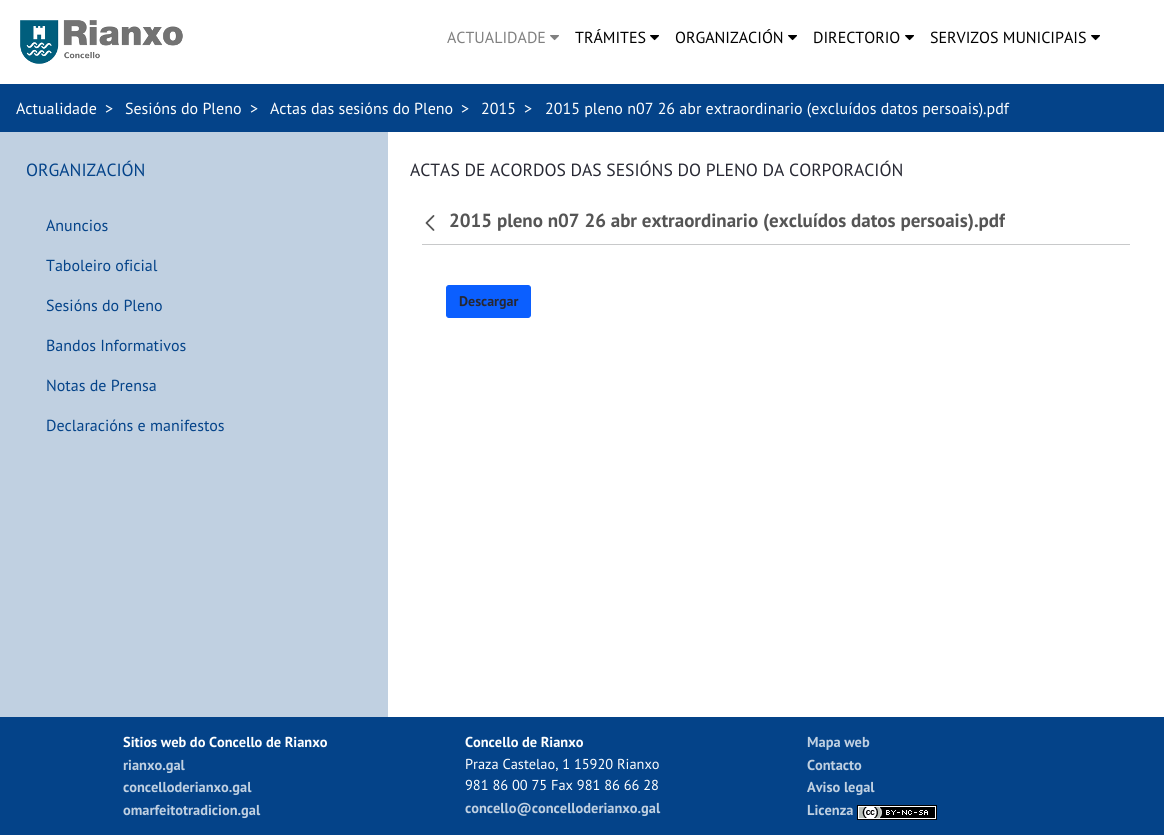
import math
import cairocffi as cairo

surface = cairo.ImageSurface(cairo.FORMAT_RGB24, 1164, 835)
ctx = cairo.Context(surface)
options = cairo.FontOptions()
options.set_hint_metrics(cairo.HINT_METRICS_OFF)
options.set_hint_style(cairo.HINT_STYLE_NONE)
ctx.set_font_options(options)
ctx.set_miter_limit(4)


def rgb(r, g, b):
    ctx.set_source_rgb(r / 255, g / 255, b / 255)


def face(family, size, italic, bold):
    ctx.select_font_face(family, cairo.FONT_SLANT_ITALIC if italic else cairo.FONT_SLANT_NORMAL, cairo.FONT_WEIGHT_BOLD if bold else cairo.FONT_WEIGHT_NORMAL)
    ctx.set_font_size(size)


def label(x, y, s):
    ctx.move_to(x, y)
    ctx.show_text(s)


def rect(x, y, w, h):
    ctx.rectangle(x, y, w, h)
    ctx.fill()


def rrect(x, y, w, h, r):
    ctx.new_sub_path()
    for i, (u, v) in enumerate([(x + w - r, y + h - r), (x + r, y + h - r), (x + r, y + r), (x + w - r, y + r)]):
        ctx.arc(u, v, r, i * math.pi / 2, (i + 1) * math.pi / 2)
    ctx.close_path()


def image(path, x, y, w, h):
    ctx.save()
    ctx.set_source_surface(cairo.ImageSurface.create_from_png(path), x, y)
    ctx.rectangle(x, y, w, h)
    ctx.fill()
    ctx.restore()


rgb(4, 67, 137)
ctx.paint()
rgb(255, 255, 255)
rect(0, 0, 1164, 84)
image('image0.png', 20, 20, 163, 44)
face('PT Sans', 16, 0, 0)
rgb(128, 128, 128)
label(447, 43, 'ACTUALIDADE')
image('image1.png', 550, 35, 9, 6)
rgb(0, 0, 0)
label(575, 43, 'TRÁMITES')
image('image2.png', 650, 35, 9, 6)
label(675, 43, 'ORGANIZACIÓN')
image('image2.png', 788, 35, 9, 6)
label(813, 43, 'DIRECTORIO')
image('image2.png', 905, 35, 9, 6)
label(930, 43, 'SERVIZOS MUNICIPAIS')
image('image2.png', 1091, 35, 9, 6)
rgb(255, 255, 255)
label(16, 114, 'Actualidade')
label(105, 114, '>')
label(125, 114, 'Sesións do Pleno')
label(250, 114, '>')
label(270, 114, 'Actas das sesións do Pleno')
label(461, 114, '>')
label(481, 114, '2015')
label(524, 114, '>')
label(545, 114, '2015 pleno n07 26 abr extraordinario (excluídos datos persoais).pdf')
rect(388, 132, 776, 585)
rgb(192, 208, 225)
rect(0, 132, 388, 585)
face('PT Sans', 17.6, 0, 0)
rgb(4, 67, 137)
label(26, 176, 'ORGANIZACIÓN')
face('PT Sans', 16, 0, 0)
label(46, 231, 'Anuncios')
label(46, 271, 'Taboleiro oficial')
label(46, 311, 'Sesións do Pleno')
label(46, 351, 'Bandos Informativos')
label(46, 391, 'Notas de Prensa')
label(46, 431, 'Declaracións e manifestos')
face('PT Sans', 17.6, 0, 0)
rgb(39, 40, 51)
label(410, 176, 'ACTAS DE ACORDOS DAS SESIÓNS DO PLENO DA CORPORACIÓN')
rgb(200, 201, 202)
rect(422, 244, 708, 1)
image('image3.png', 425, 215, 10, 16)
ctx.save()
ctx.rectangle(449, 210, 556, 23)
ctx.clip()
face('PT Sans', 19, 0, 1)
rgb(85, 85, 85)
label(449, 227, '2015 pleno n07 26 abr extraordinario (excluídos datos persoais).pdf')
ctx.restore()
rgb(11, 95, 255)
rrect(446.5, 285.5, 84, 32, 2.5)
ctx.fill_preserve()
ctx.set_line_width(1)
ctx.stroke()
face('PT Sans', 14, 0, 1)
rgb(39, 40, 51)
label(459, 306, 'Descargar')
face('PT Sans', 14.4, 0, 1)
rgb(255, 255, 255)
label(123, 747, 'Sitios web do Concello de Rianxo')
rgb(192, 208, 225)
label(123, 770, 'rianxo.gal')
label(123, 792, 'concelloderianxo.gal')
label(123, 815, 'omarfeitotradicion.gal')
rgb(255, 255, 255)
label(465, 747, 'Concello de Rianxo')
face('PT Sans', 14.4, 0, 0)
label(465, 769, 'Praza Castelao, 1 15920 Rianxo')
label(465, 790, '981 86 00 75 Fax 981 86 66 28')
face('PT Sans', 14.4, 0, 1)
rgb(192, 208, 225)
label(465, 813, 'concello@concelloderianxo.gal')
label(807, 747, 'Mapa web')
label(807, 770, 'Contacto')
label(807, 792, 'Aviso legal')
label(807, 815, 'Licenza')
image('image4.png', 857, 805, 80, 15)
surface.write_to_png('render.png')
